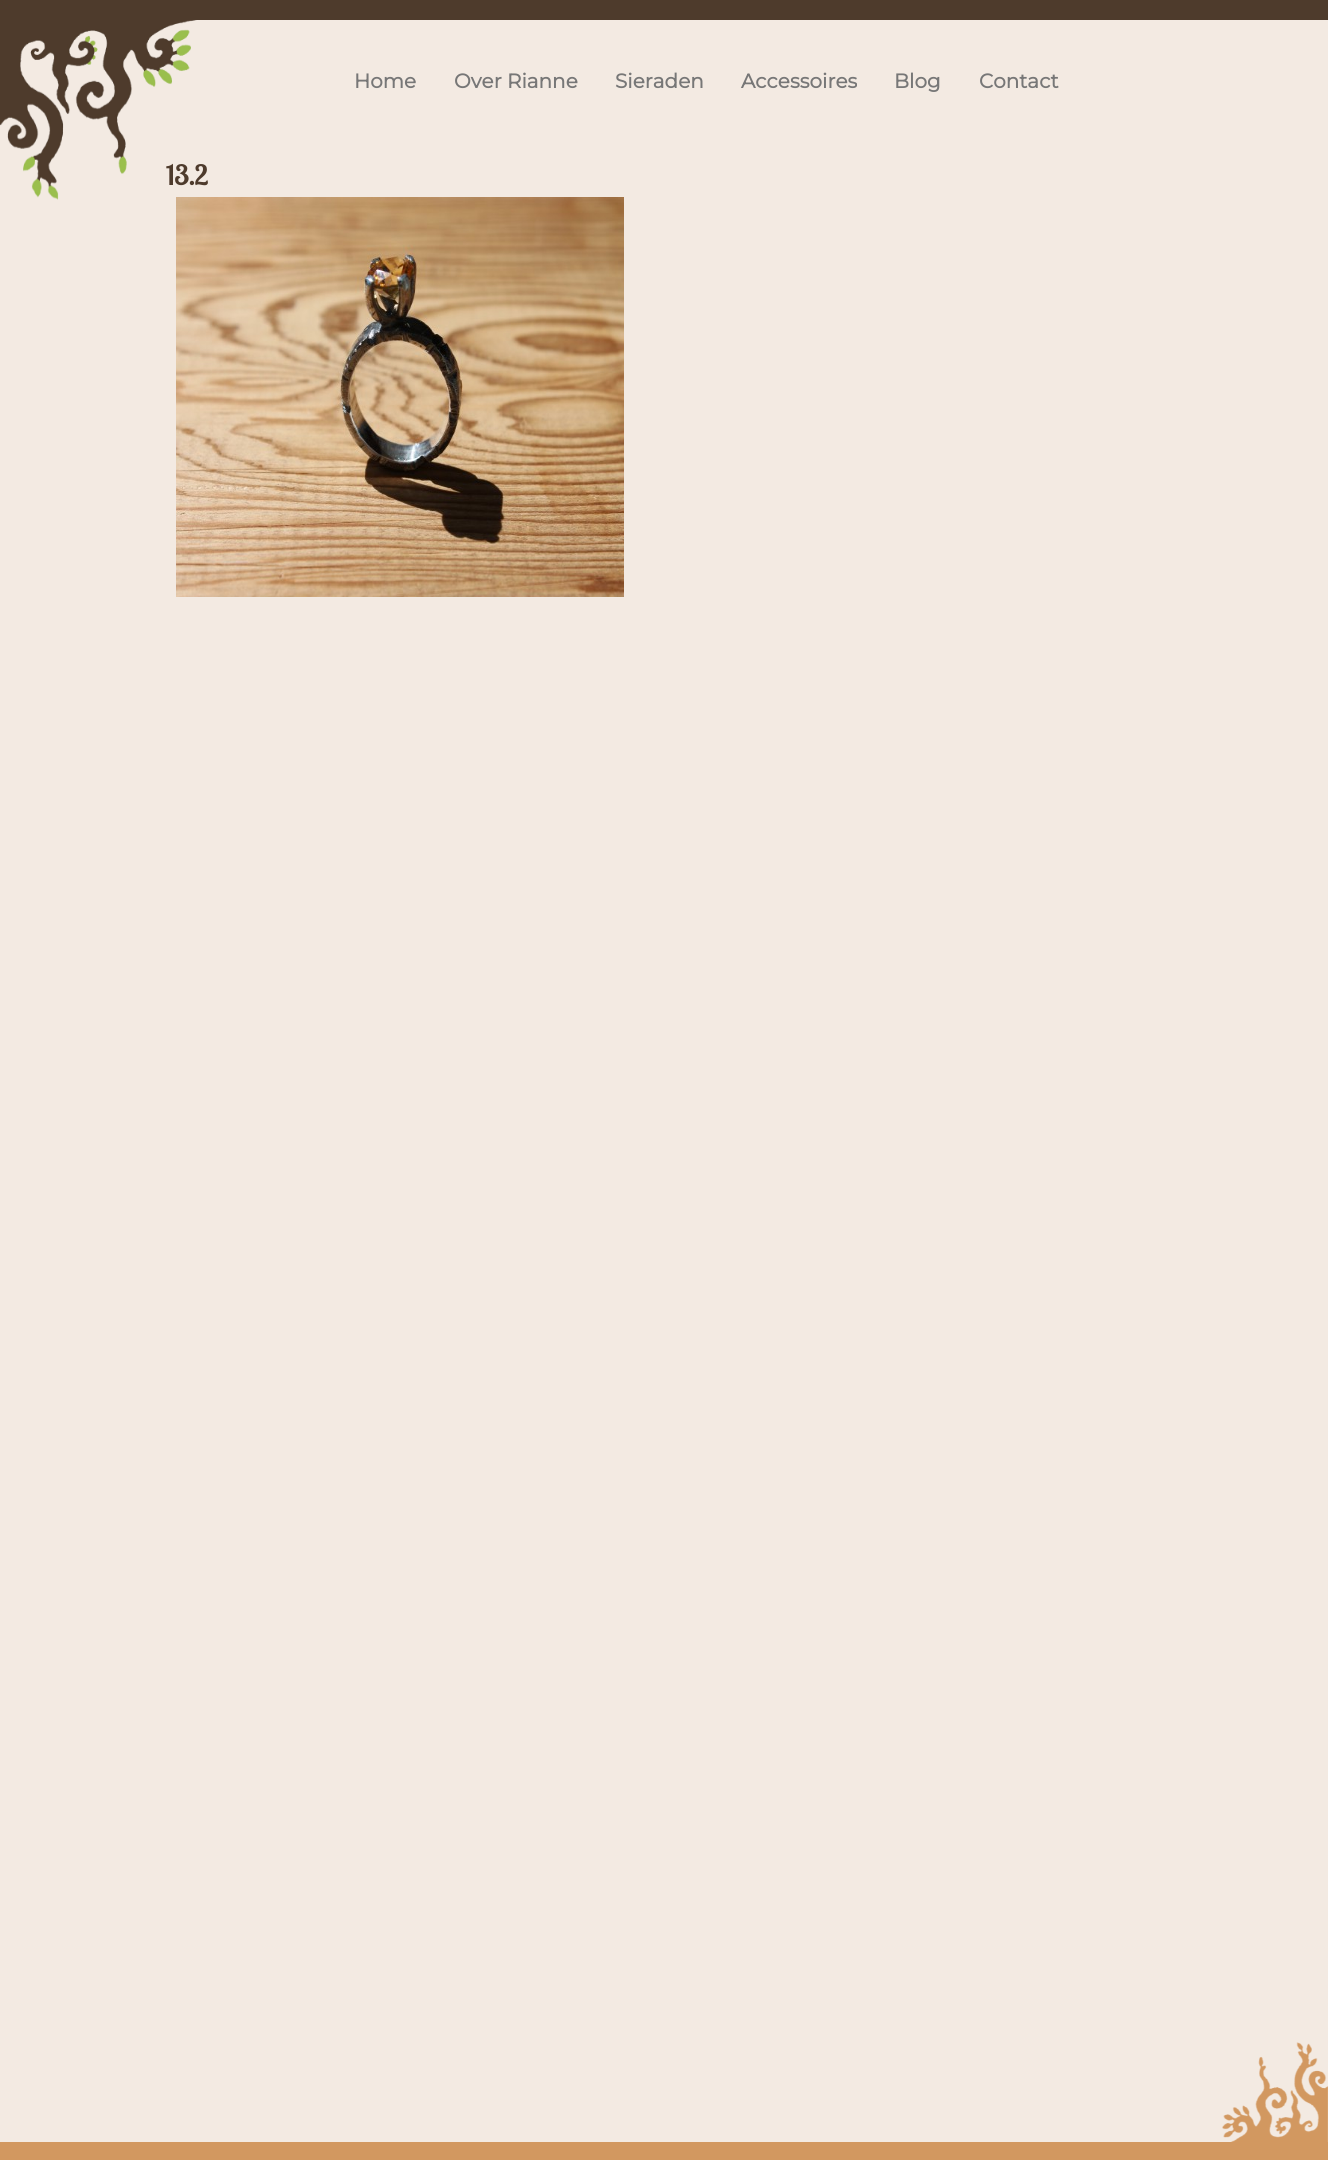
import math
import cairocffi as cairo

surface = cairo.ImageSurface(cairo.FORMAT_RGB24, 1328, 2160)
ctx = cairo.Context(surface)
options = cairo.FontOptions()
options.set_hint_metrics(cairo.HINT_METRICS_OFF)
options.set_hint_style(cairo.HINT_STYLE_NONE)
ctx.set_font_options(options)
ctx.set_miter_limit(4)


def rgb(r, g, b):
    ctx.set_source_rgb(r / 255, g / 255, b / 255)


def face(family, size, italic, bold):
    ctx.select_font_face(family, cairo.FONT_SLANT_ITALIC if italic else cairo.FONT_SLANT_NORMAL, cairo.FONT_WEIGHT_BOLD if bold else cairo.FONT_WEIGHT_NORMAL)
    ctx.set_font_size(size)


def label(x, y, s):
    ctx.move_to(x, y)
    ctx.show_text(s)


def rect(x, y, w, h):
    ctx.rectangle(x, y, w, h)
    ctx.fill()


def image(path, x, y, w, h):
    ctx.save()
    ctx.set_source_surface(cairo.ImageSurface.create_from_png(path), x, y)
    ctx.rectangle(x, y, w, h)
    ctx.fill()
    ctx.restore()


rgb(243, 234, 226)
ctx.paint()
rgb(78, 59, 44)
rect(0, 0, 1328, 20)
face('Lobster Two', 27, 0, 1)
label(166, 185, '13.2')
image('image1.png', 176, 197, 448, 400)
image('image0.png', 0, 20, 197, 180)
face('Montserrat', 20, 0, 1)
rgb(119, 119, 119)
label(354, 88, 'Home')
label(454, 88, 'Over Rianne')
label(615, 88, 'Sieraden')
label(741, 88, 'Accessoires')
label(894, 88, 'Blog')
label(979, 88, 'Contact')
image('image2.png', 1222, 2042, 106, 100)
rgb(210, 152, 96)
rect(0, 2142, 1328, 18)
surface.write_to_png('render.png')
